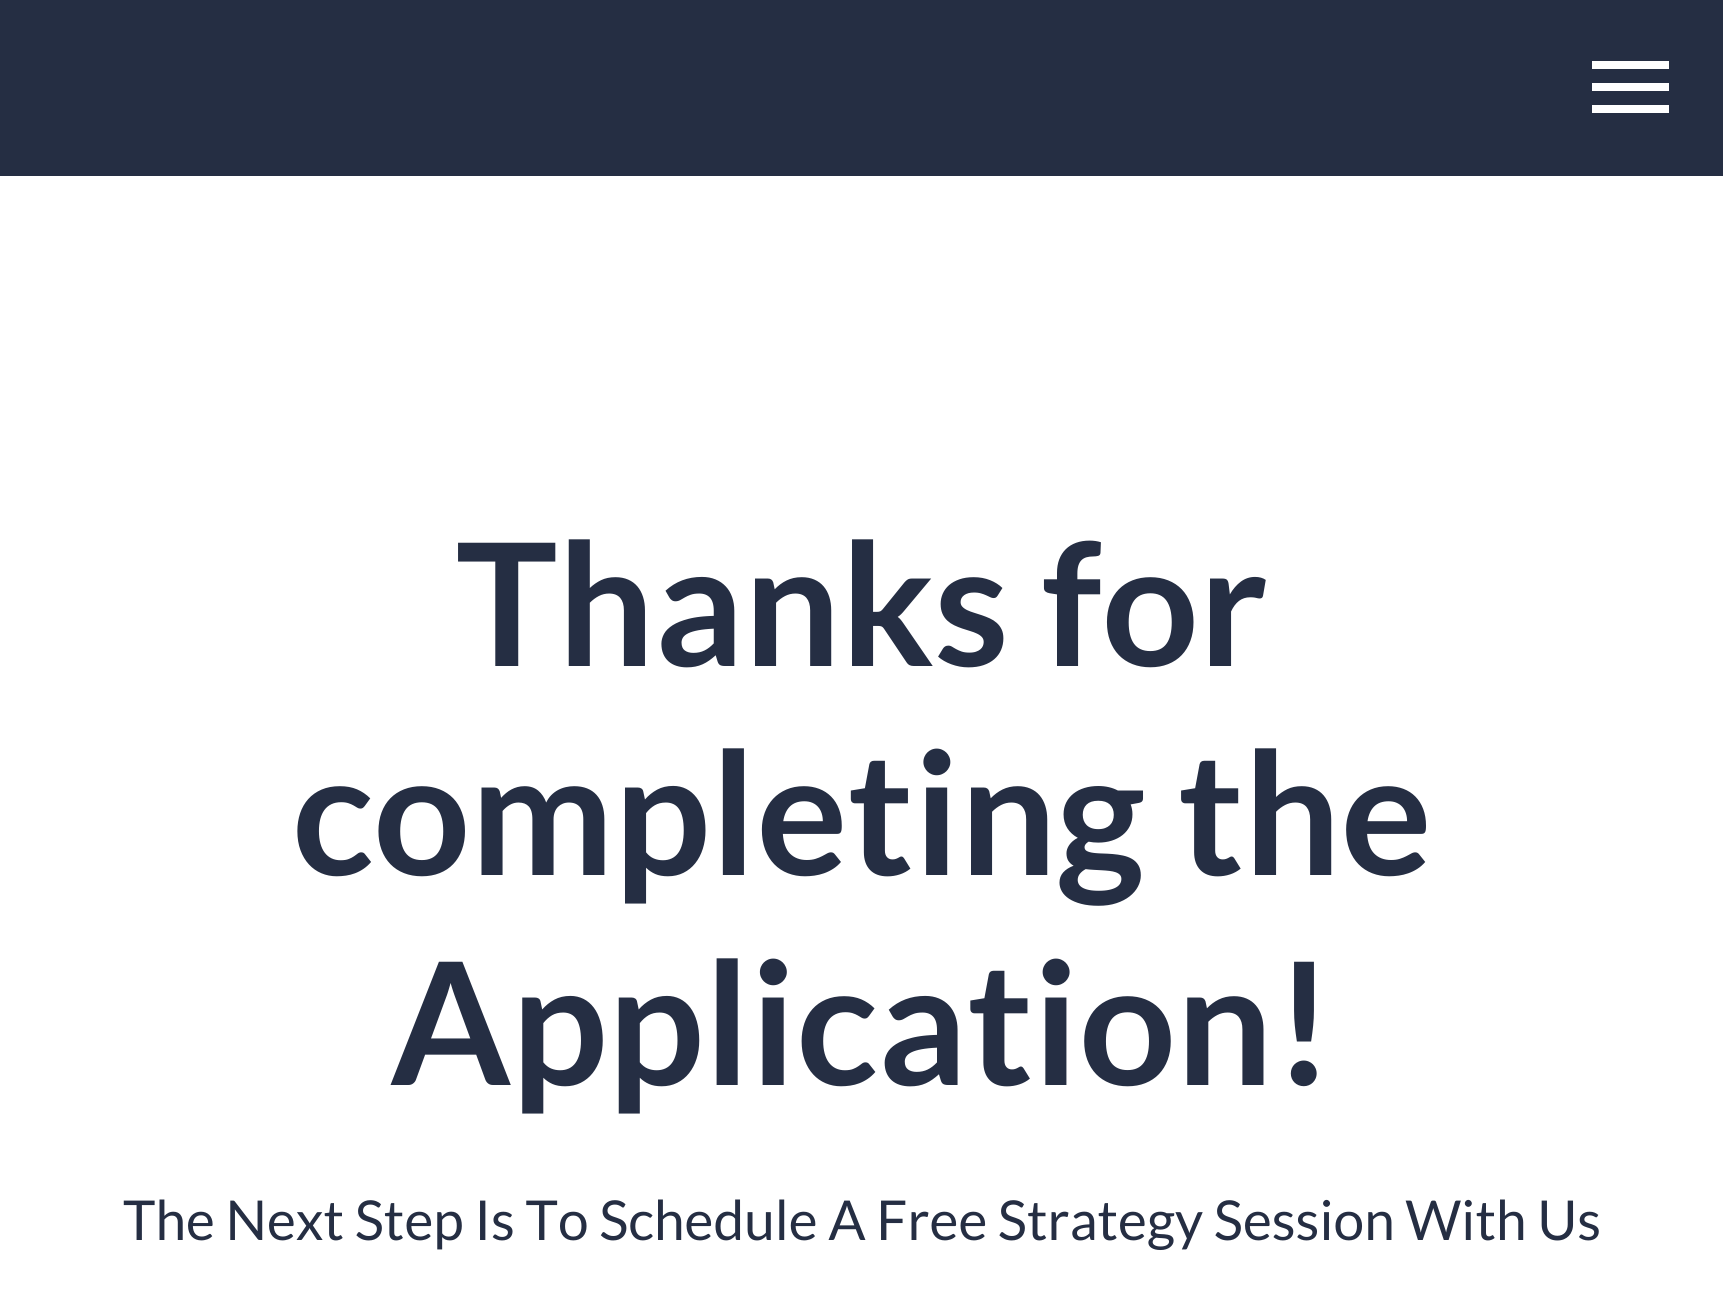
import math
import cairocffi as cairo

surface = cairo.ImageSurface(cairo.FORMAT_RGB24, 1723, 1302)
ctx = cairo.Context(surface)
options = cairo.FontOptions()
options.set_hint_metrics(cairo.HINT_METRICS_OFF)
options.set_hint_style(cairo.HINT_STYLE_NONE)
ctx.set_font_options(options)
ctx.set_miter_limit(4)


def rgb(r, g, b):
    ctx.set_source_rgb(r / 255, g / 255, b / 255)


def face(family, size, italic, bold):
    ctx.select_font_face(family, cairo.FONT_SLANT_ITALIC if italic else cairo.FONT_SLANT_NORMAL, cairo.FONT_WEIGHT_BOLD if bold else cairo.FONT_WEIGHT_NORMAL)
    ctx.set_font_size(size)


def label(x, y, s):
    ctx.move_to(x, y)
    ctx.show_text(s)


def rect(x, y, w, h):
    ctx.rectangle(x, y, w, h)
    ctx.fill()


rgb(255, 255, 255)
ctx.paint()
rgb(37, 46, 67)
rect(0, 0, 1723, 176)
rgb(255, 255, 255)
rect(1592, 61, 77, 8)
rect(1592, 83, 77, 8)
rect(1592, 105, 77, 8)
face('Lato', 170.5, 0, 1)
rgb(37, 46, 67)
label(456, 666, 'Thanks for')
label(292, 875, 'completing the')
label(390, 1085, 'Application!')
face('Lato', 55, 0, 0)
label(123, 1240, 'The Next Step Is To Schedule A Free Strategy Session With Us')
surface.write_to_png('render.png')
